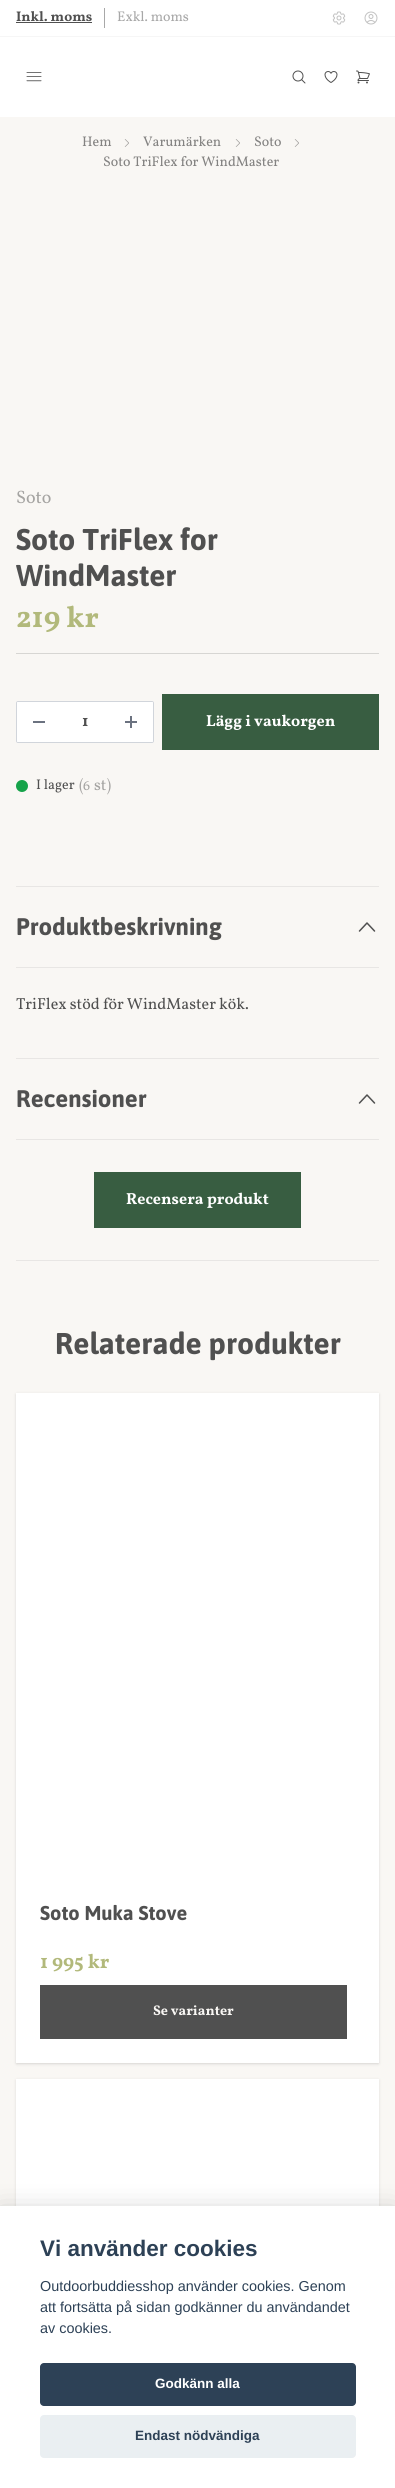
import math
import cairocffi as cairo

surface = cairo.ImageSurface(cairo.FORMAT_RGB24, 395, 2488)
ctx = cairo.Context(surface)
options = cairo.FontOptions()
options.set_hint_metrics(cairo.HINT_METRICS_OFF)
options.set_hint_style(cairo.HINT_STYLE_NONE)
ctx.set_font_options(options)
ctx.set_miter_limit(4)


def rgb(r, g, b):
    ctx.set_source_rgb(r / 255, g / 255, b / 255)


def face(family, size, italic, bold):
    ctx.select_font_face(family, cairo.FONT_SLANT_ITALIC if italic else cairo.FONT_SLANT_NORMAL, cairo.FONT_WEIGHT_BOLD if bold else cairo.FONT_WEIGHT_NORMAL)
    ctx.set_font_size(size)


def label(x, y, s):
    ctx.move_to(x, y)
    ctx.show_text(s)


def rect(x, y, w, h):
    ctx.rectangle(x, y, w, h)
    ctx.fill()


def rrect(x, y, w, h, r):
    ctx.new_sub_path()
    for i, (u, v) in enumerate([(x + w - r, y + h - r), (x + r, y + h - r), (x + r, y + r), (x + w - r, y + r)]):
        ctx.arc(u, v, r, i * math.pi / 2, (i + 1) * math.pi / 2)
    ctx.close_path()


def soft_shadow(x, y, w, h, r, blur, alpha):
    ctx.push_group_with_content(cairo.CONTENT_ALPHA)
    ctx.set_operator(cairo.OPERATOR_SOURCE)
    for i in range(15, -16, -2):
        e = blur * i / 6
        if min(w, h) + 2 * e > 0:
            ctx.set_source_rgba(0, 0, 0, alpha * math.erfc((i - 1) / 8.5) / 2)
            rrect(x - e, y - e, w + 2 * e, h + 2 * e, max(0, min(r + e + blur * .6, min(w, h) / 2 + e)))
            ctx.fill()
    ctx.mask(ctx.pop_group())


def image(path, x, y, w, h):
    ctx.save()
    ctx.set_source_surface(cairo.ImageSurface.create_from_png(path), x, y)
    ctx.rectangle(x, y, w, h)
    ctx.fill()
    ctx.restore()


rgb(249, 247, 244)
ctx.paint()
rgb(255, 255, 255)
rect(0, 0, 395, 117)
face('Vollkorn', 14, 0, 1)
rgb(80, 80, 80)
label(16, 21, 'Inkl. moms')
rect(16, 22, 76, 1)
rgb(168, 168, 168)
rect(104, 8, 1, 20)
face('Vollkorn', 14, 0, 0)
label(117, 21, 'Exkl. moms')
image('image0.png', 332, 11, 14, 14)
image('image1.png', 364, 11, 14, 14)
rgb(246, 246, 246)
rect(0, 36, 395, 1)
image('image2.png', 26, 72, 16, 10)
image('image3.png', 292, 70, 14, 14)
image('image4.png', 324, 71, 14, 12)
image('image5.png', 356, 70, 14, 14)
rgb(131, 130, 129)
label(82, 146, 'Hem')
image('image6.png', 124, 139, 5, 8)
label(143, 146, 'Varumärken')
image('image6.png', 235, 139, 5, 8)
label(254, 146, 'Soto')
image('image6.png', 294, 139, 5, 8)
label(103, 166, 'Soto TriFlex for WindMaster')
face('Vollkorn', 18, 0, 0)
rgb(165, 164, 162)
label(16, 503, 'Soto')
face('Asap', 30, 0, 1)
rgb(80, 80, 80)
label(16, 550, 'Soto TriFlex for')
label(16, 586, 'WindMaster')
face('Vollkorn', 30, 0, 1)
rgb(178, 185, 123)
label(16, 627, '219 kr')
rgb(215, 214, 211)
rect(16, 653, 363, 1)
rgb(255, 255, 255)
rrect(16.5, 701.5, 137, 41, 1.5)
ctx.fill_preserve()
rgb(209, 213, 219)
ctx.set_line_width(1)
ctx.stroke()
rgb(255, 255, 255)
ctx.new_path()
ctx.move_to(18, 702)
ctx.line_to(61, 702)
ctx.line_to(61, 742)
ctx.line_to(18, 742)
ctx.curve_to(17.5, 742, 17, 741.5, 17, 741)
ctx.line_to(17, 703)
ctx.curve_to(17, 702.5, 17.5, 702, 18, 702)
ctx.close_path()
ctx.fill()
rgb(107, 114, 128)
rect(33, 721, 12, 2)
face('Vollkorn', 16, 0, 1)
rgb(80, 80, 80)
label(82, 726, '1')
rgb(255, 255, 255)
ctx.new_path()
ctx.move_to(109, 702)
ctx.line_to(152, 702)
ctx.curve_to(152.5, 702, 153, 702.5, 153, 703)
ctx.line_to(153, 741)
ctx.curve_to(153, 741.5, 152.5, 742, 152, 742)
ctx.line_to(109, 742)
ctx.close_path()
ctx.fill()
rgb(107, 114, 128)
rect(130, 716, 2, 12)
rect(125, 721, 12, 2)
rgb(56, 93, 65)
rect(162, 694, 217, 56)
rgb(255, 255, 255)
label(206, 726, 'Lägg i vaukorgen')
rgb(22, 163, 74)
ctx.new_path()
ctx.arc(22, 786, 6, 0, 2 * math.pi)
ctx.fill()
face('Vollkorn', 14, 0, 0)
rgb(80, 80, 80)
label(36, 789, 'I lager')
face('Vollkorn', 16, 0, 0)
rgb(165, 164, 162)
label(79, 790, '(')
face('Vollkorn', 14, 0, 0)
label(83, 790, '6')
face('Vollkorn', 16, 0, 0)
label(94, 790, 'st)')
rgb(232, 230, 228)
rect(16, 886, 363, 1)
face('Asap', 24, 0, 1)
rgb(80, 80, 80)
label(16, 935, 'Produktbeskrivning')
ctx.new_path()
ctx.move_to(359.5, 931)
ctx.line_to(367, 923)
ctx.line_to(374.5, 931)
ctx.set_line_width(1.5)
ctx.set_line_cap(cairo.LINE_CAP_ROUND)
ctx.set_line_join(cairo.LINE_JOIN_ROUND)
ctx.stroke()
rgb(232, 230, 228)
rect(16, 967, 363, 1)
face('Vollkorn', 16, 0, 0)
rgb(80, 80, 80)
label(16, 1009, 'TriFlex stöd för WindMaster kök.')
rgb(232, 230, 228)
rect(16, 1058, 363, 1)
face('Asap', 24, 0, 1)
rgb(80, 80, 80)
label(16, 1107, 'Recensioner')
ctx.new_path()
ctx.move_to(359.5, 1103)
ctx.line_to(367, 1095)
ctx.line_to(374.5, 1103)
ctx.stroke()
rgb(232, 230, 228)
rect(16, 1139, 363, 1)
rgb(56, 93, 65)
rect(94, 1172, 207, 56)
face('Vollkorn', 16, 0, 1)
rgb(255, 255, 255)
label(126, 1204, 'Recensera produkt')
rgb(232, 230, 228)
rect(16, 1260, 363, 1)
face('Asap', 30, 0, 1)
rgb(80, 80, 80)
label(55, 1354, 'Relaterade produkter')
rgb(0, 0, 0)
soft_shadow(17, 1395, 361, 668, 0, 1, 0.1)
soft_shadow(16, 1394, 363, 670, 0, 1.5, 0.1)
rgb(255, 255, 255)
rect(16, 1393, 363, 670)
face('Asap', 20, 0, 1)
rgb(80, 80, 80)
label(40, 1920, 'Soto Muka Stove')
face('Vollkorn', 20, 0, 1)
rgb(178, 185, 123)
label(40, 1968, '1 995 kr')
rgb(80, 80, 80)
rect(40, 1985, 307, 54)
face('Vollkorn', 14, 0, 1)
rgb(249, 247, 244)
label(153, 2015, 'Se varianter')
rgb(0, 0, 0)
soft_shadow(16, 2080, 363, 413, 0, 1.5, 0.1)
rgb(255, 255, 255)
rect(16, 2079, 363, 127)
rgb(2, 2, 3)
soft_shadow(0, 2216, 395, 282, 0, 15, 0.28)
rgb(255, 255, 255)
rect(0, 2206, 395, 282)
face('Liberation Sans', 22.5, 0, 1)
rgb(45, 65, 86)
label(40, 2256, 'Vi använder cookies')
face('Liberation Sans', 14.4, 0, 0)
label(40, 2291, 'Outdoorbuddiesshop använder cookies. Genom')
label(40, 2312, 'att fortsätta på sidan godkänner du användandet')
label(40, 2333, 'av cookies.')
rrect(40, 2363, 316, 43, 4)
ctx.fill()
face('Liberation Sans', 13.5, 0, 1)
rgb(255, 255, 255)
label(155, 2388, 'Godkänn alla')
rgb(234, 239, 242)
rrect(40, 2415, 316, 43, 4)
ctx.fill()
rgb(45, 65, 86)
label(135, 2440, 'Endast nödvändiga')
surface.write_to_png('render.png')
